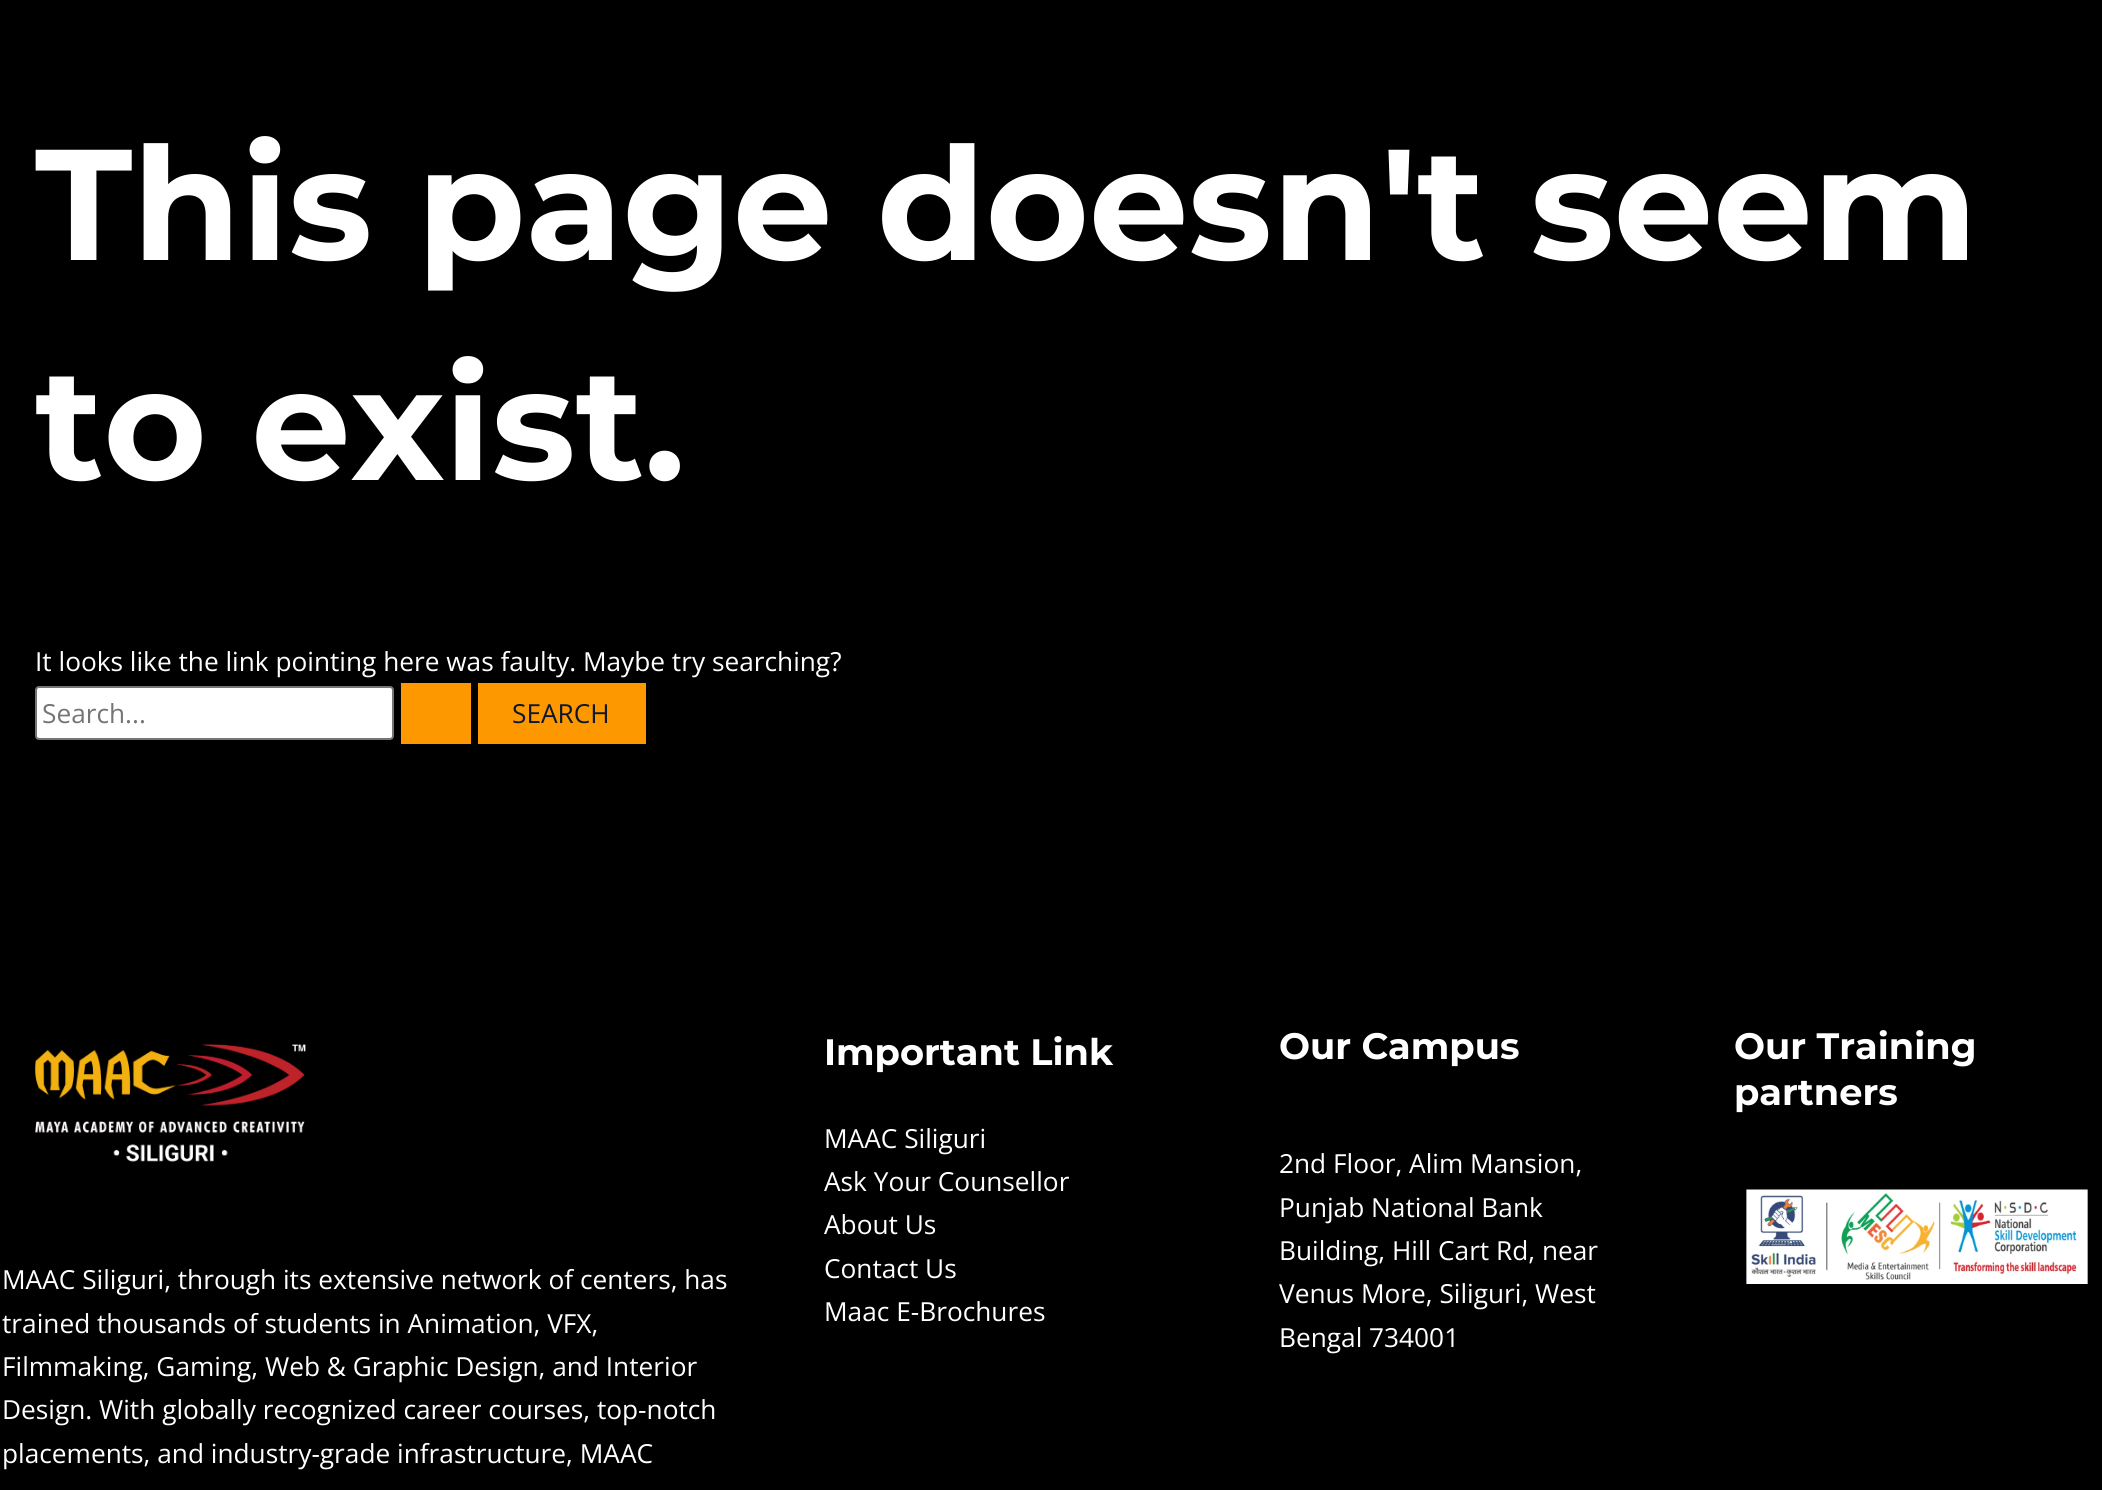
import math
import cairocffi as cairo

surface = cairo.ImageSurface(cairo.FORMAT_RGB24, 2102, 1490)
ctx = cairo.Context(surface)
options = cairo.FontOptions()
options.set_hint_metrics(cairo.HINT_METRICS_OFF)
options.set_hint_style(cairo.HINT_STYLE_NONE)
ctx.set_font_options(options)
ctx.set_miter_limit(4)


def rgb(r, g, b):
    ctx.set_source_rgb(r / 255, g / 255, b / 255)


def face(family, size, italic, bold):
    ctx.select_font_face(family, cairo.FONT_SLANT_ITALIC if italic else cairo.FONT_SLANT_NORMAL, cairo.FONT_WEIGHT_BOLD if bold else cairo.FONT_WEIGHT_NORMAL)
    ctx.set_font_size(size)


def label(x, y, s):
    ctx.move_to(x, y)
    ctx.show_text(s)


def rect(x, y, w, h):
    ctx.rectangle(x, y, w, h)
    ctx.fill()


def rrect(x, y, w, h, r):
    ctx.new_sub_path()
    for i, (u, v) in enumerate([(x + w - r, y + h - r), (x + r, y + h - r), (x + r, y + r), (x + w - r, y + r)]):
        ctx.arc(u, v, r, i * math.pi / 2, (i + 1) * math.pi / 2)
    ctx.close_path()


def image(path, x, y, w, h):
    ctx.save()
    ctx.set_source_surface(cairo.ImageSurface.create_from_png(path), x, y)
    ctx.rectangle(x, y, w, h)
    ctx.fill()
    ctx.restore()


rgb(0, 0, 0)
ctx.paint()
face('Montserrat', 157.5, 0, 1)
rgb(255, 255, 255)
label(35, 260, 'This page doesn\'t seem')
label(35, 480, 'to exist.')
face('Open Sans', 26.25, 0, 0)
label(35, 671, 'It looks like the link pointing here was faulty. Maybe try searching?')
rrect(36, 687, 357, 52, 3)
ctx.fill_preserve()
rgb(118, 118, 118)
ctx.stroke()
rgb(117, 117, 117)
label(42, 723, 'Search...')
rgb(253, 152, 0)
rect(401, 683, 70, 61)
rect(478, 683, 168, 61)
rgb(15, 23, 42)
label(512, 723, 'SEARCH')
face('Montserrat', 36.75, 0, 1)
rgb(255, 255, 255)
label(824, 1065, 'Important Link')
face('Open Sans', 26.25, 0, 0)
label(824, 1148, 'MAAC Siliguri')
label(824, 1191, 'Ask Your Counsellor')
label(824, 1234, 'About Us')
label(824, 1278, 'Contact Us')
label(824, 1321, 'Maac E-Brochures')
face('Montserrat', 36.75, 0, 1)
label(1279, 1059, 'Our Campus')
face('Open Sans', 26.25, 0, 0)
label(1279, 1173, '2nd Floor, Alim Mansion,')
label(1279, 1217, 'Punjab National Bank')
label(1279, 1260, 'Building, Hill Cart Rd, near')
label(1279, 1303, 'Venus More, Siliguri, West')
label(1279, 1347, 'Bengal 734001')
face('Montserrat', 36.75, 0, 1)
label(1734, 1059, 'Our Training')
label(1734, 1105, 'partners')
image('image0.png', 1746, 1189, 342, 95)
image('image1.png', 35, 1044, 271, 118)
face('Open Sans', 26.25, 0, 0)
label(2, 1289, 'MAAC Siliguri, through its extensive network of centers, has')
label(2, 1333, 'trained thousands of students in Animation, VFX,')
label(2, 1376, 'Filmmaking, Gaming, Web & Graphic Design, and Interior')
label(2, 1419, 'Design. With globally recognized career courses, top-notch')
label(2, 1463, 'placements, and industry-grade infrastructure, MAAC')
surface.write_to_png('render.png')
